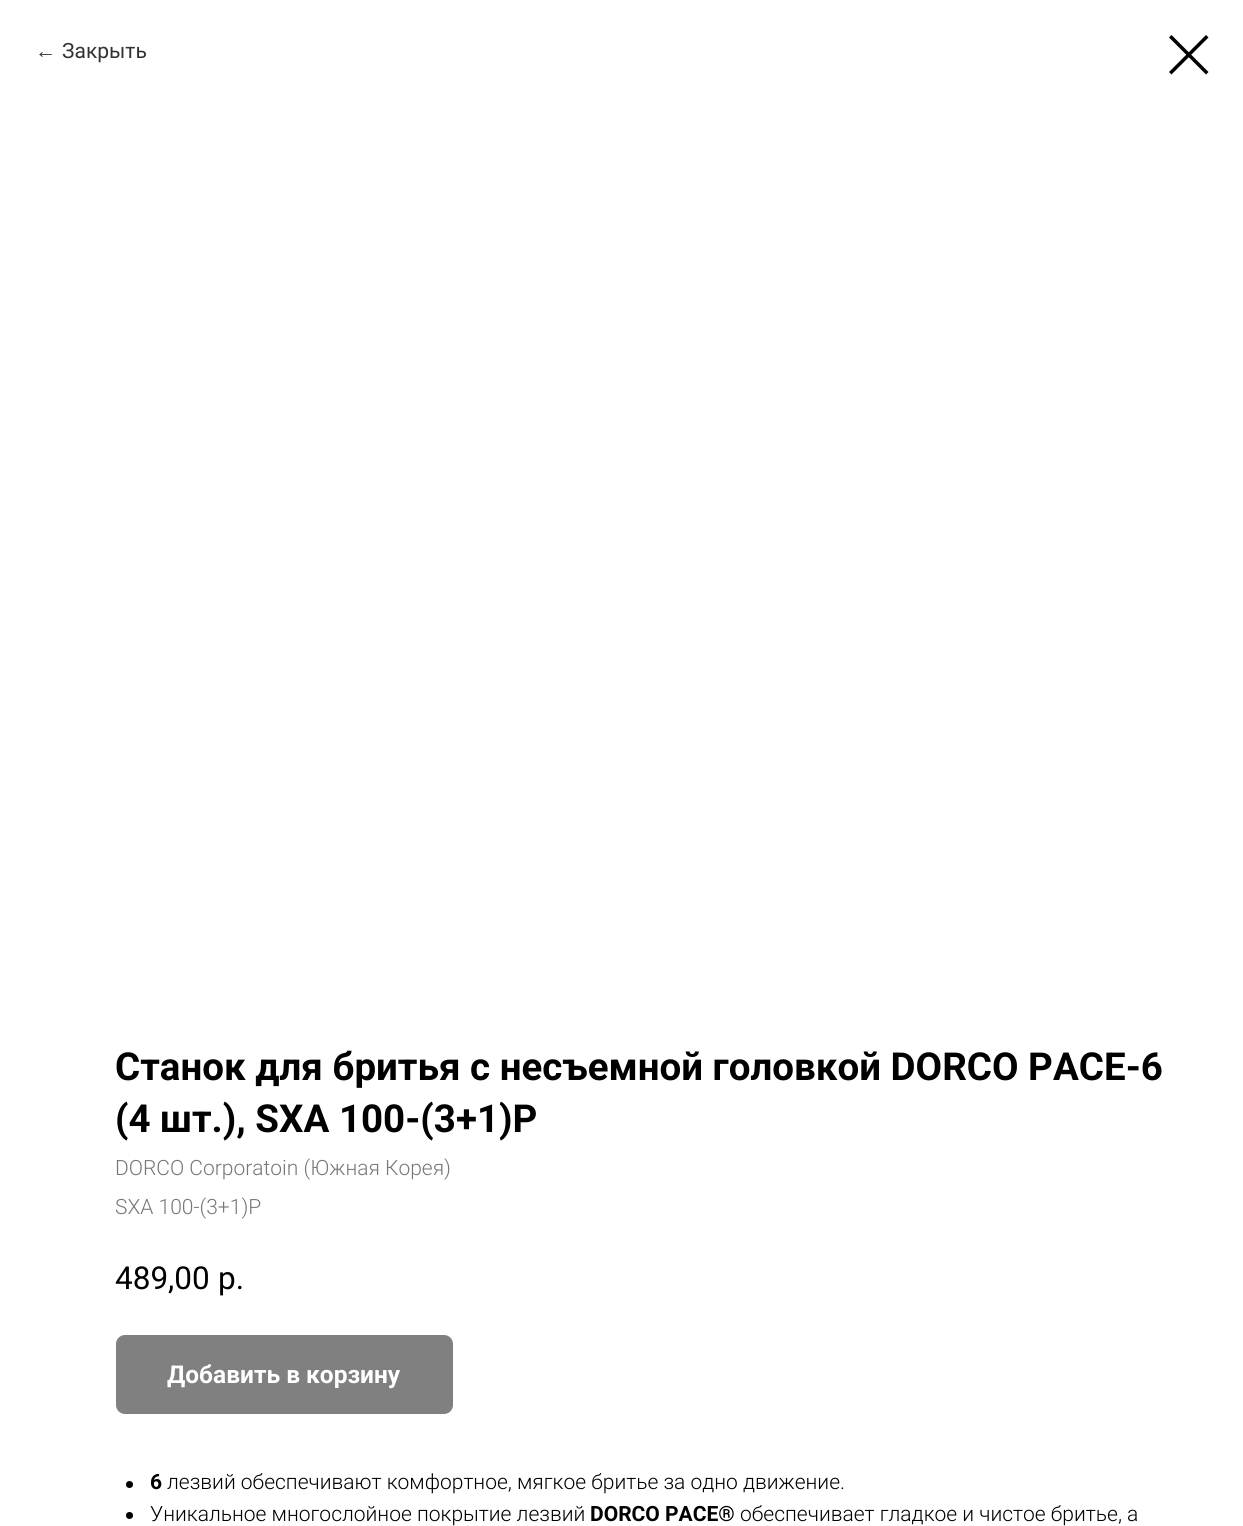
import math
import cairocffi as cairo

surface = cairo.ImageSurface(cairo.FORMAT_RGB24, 1243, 1526)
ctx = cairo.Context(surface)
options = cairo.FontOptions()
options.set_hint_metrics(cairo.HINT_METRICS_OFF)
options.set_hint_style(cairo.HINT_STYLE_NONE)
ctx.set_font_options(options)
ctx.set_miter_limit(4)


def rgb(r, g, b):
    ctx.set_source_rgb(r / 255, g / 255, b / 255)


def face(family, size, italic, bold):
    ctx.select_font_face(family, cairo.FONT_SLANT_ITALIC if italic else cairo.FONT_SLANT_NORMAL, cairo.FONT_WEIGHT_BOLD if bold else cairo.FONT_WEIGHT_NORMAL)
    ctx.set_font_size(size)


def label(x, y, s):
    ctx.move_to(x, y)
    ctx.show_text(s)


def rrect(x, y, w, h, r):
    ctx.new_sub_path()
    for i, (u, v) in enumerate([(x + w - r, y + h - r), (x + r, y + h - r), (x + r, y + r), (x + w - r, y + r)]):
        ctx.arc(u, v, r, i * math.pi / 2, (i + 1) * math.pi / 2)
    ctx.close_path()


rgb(255, 255, 255)
ctx.paint()
face('Liberation Sans', 21, 0, 0)
rgb(51, 51, 51)
label(35, 58, '←')
face('Roboto', 21, 0, 0)
label(62, 58, 'Закрыть')
rgb(0, 0, 0)
ctx.set_fill_rule(cairo.FILL_RULE_EVEN_ODD)
ctx.new_path()
ctx.move_to(1169, 37.5)
ctx.line_to(1171.5, 35)
ctx.line_to(1208.5, 72)
ctx.line_to(1206, 74.5)
ctx.close_path()
ctx.fill()
ctx.new_path()
ctx.move_to(1206, 35)
ctx.line_to(1208.5, 37.5)
ctx.line_to(1171.5, 74.5)
ctx.line_to(1169, 72)
ctx.close_path()
ctx.fill()
face('Roboto', 38.5, 0, 1)
label(115, 1080, 'Станок для бритья с несъемной головкой DORCO PACE-6')
label(115, 1132, '(4 шт.), SXA 100-(3+1)P')
face('Roboto Light', 21, 0, 0)
rgb(119, 119, 119)
label(115, 1175, 'DORCO Corporatoin (Южная Корея)')
label(115, 1214, 'SXA 100-(3+1)P')
face('Roboto', 31.5, 0, 0)
rgb(0, 0, 0)
label(115, 1289, '489,00')
label(218, 1289, 'р.')
rgb(128, 128, 128)
rrect(116, 1335, 337, 79, 9)
ctx.fill()
face('Roboto', 24.5, 0, 1)
rgb(255, 255, 255)
label(167, 1383, 'Добавить в корзину')
rgb(0, 0, 0)
ctx.new_path()
ctx.arc(129.5, 1484.5, 3.5, 0, 2 * math.pi)
ctx.fill()
face('Roboto', 21, 0, 1)
label(150, 1489, '6')
face('Roboto Light', 21, 0, 0)
label(167, 1489, 'лезвий обеспечивают комфортное, мягкое бритье за одно движение.')
ctx.new_path()
ctx.arc(129.5, 1515.5, 3.5, 0, 2 * math.pi)
ctx.fill()
label(150, 1521, 'Уникальное многослойное покрытие лезвий')
face('Roboto', 21, 0, 1)
label(590, 1521, 'DORCO PACE®')
face('Roboto Light', 21, 0, 0)
label(740, 1521, 'обеспечивает гладкое и чистое бритье, а')
surface.write_to_png('render.png')
